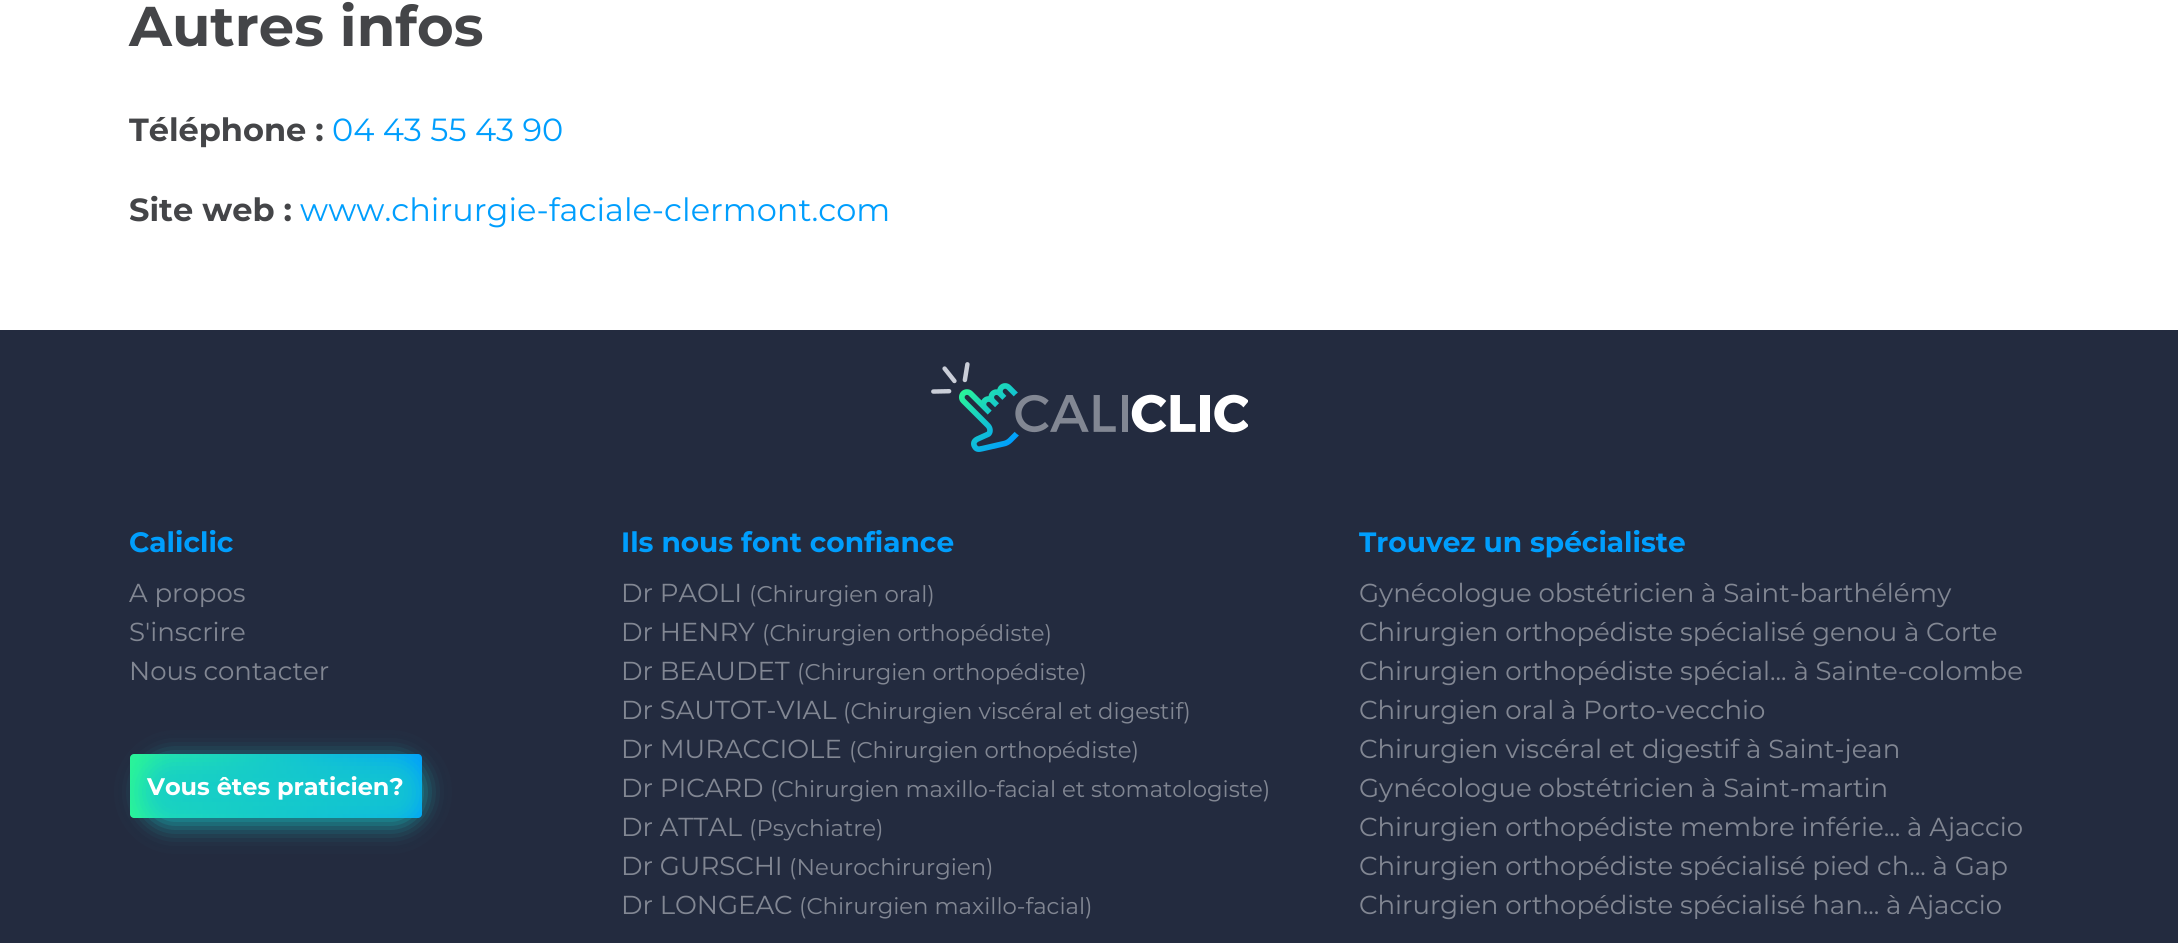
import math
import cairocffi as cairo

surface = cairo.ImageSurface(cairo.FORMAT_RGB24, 2178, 943)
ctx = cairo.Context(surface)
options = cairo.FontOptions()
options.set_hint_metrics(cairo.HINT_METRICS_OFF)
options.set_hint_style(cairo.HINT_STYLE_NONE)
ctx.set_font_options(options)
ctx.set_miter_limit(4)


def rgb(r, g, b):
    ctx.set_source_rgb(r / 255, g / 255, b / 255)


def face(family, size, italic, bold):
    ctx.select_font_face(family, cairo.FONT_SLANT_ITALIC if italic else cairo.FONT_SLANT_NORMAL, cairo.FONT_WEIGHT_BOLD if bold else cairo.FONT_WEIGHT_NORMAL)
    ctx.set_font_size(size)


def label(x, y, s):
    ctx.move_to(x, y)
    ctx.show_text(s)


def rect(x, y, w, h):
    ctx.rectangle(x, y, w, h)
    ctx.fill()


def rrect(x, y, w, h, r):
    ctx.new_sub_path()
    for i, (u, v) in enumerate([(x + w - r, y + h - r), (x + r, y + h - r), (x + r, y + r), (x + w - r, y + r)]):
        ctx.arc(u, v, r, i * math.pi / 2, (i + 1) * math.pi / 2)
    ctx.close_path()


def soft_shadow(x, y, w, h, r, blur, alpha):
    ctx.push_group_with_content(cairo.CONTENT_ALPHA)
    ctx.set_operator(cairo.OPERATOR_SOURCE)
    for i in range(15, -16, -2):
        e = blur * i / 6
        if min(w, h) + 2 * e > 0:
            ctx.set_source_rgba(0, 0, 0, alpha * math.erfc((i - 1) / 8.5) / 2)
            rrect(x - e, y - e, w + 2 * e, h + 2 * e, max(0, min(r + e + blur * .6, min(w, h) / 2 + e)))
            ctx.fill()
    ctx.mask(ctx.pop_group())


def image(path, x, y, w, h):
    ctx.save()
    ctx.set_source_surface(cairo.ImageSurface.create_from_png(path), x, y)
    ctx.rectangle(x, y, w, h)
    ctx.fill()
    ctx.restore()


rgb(255, 255, 255)
ctx.paint()
face('Montserrat', 56, 0, 1)
rgb(68, 69, 72)
label(129, 46, 'Autres infos')
face('Montserrat', 32, 0, 1)
label(129, 141, 'Téléphone :')
face('Montserrat', 32, 0, 0)
rgb(0, 158, 253)
label(332, 141, '04 43 55 43 90')
face('Montserrat', 32, 0, 1)
rgb(68, 69, 72)
label(129, 221, 'Site web :')
face('Montserrat', 32, 0, 0)
rgb(0, 158, 253)
label(300, 221, 'www.chirurgie-faciale-clermont.com')
rgb(35, 43, 63)
rect(0, 330, 2178, 613)
image('image0.png', 931, 362, 317, 90)
face('Montserrat', 28, 0, 1)
rgb(0, 158, 253)
label(129, 552, 'Caliclic')
face('Montserrat', 26, 0, 0)
rgb(130, 135, 147)
label(129, 602, 'A propos')
label(129, 641, 'S\'inscrire')
label(129, 680, 'Nous contacter')
gradient = cairo.LinearGradient(130, 786, 422, 786)
gradient.add_color_stop_rgba(0, 0.165, 0.961, 0.596, 1)
gradient.add_color_stop_rgba(1, 0, 0.62, 0.992, 1)
ctx.set_source(gradient)
rrect(130, 754, 292, 64, 4)
ctx.fill()
rgb(21, 202, 203)
soft_shadow(144, 760, 278, 64, 32, 12, 0.8)
face('Montserrat', 24, 0, 1)
rgb(255, 255, 255)
label(147, 795, 'Vous êtes praticien?')
face('Montserrat', 28, 0, 1)
rgb(0, 158, 253)
label(621, 552, 'Ils nous font confiance')
face('Montserrat', 26, 0, 0)
rgb(130, 135, 147)
label(621, 602, 'Dr PAOLI')
face('Montserrat', 22.75, 0, 0)
label(749, 602, '(Chirurgien oral)')
face('Montserrat', 26, 0, 0)
label(621, 641, 'Dr HENRY')
face('Montserrat', 22.75, 0, 0)
label(762, 641, '(Chirurgien orthopédiste)')
face('Montserrat', 26, 0, 0)
label(621, 680, 'Dr BEAUDET')
face('Montserrat', 22.75, 0, 0)
label(797, 680, '(Chirurgien orthopédiste)')
face('Montserrat', 26, 0, 0)
label(621, 719, 'Dr SAUTOT-VIAL')
face('Montserrat', 22.75, 0, 0)
label(843, 719, '(Chirurgien viscéral et digestif)')
face('Montserrat', 26, 0, 0)
label(621, 758, 'Dr MURACCIOLE')
face('Montserrat', 22.75, 0, 0)
label(849, 758, '(Chirurgien orthopédiste)')
face('Montserrat', 26, 0, 0)
label(621, 797, 'Dr PICARD')
face('Montserrat', 22.75, 0, 0)
label(770, 797, '(Chirurgien maxillo-facial et stomatologiste)')
face('Montserrat', 26, 0, 0)
label(621, 836, 'Dr ATTAL')
face('Montserrat', 22.75, 0, 0)
label(749, 836, '(Psychiatre)')
face('Montserrat', 26, 0, 0)
label(621, 875, 'Dr GURSCHI')
face('Montserrat', 22.75, 0, 0)
label(789, 875, '(Neurochirurgien)')
face('Montserrat', 26, 0, 0)
label(621, 914, 'Dr LONGEAC')
face('Montserrat', 22.75, 0, 0)
label(799, 914, '(Chirurgien maxillo-facial)')
face('Montserrat', 28, 0, 1)
rgb(0, 158, 253)
label(1359, 552, 'Trouvez un spécialiste')
face('Montserrat', 26, 0, 0)
rgb(130, 135, 147)
label(1359, 602, 'Gynécologue obstétricien à Saint-barthélémy')
label(1359, 641, 'Chirurgien orthopédiste spécialisé genou à Corte')
label(1359, 680, 'Chirurgien orthopédiste spécial... à Sainte-colombe')
label(1359, 719, 'Chirurgien oral à Porto-vecchio')
label(1359, 758, 'Chirurgien viscéral et digestif à Saint-jean')
label(1359, 797, 'Gynécologue obstétricien à Saint-martin')
label(1359, 836, 'Chirurgien orthopédiste membre inférie... à Ajaccio')
label(1359, 875, 'Chirurgien orthopédiste spécialisé pied ch... à Gap')
label(1359, 914, 'Chirurgien orthopédiste spécialisé han... à Ajaccio')
surface.write_to_png('render.png')
